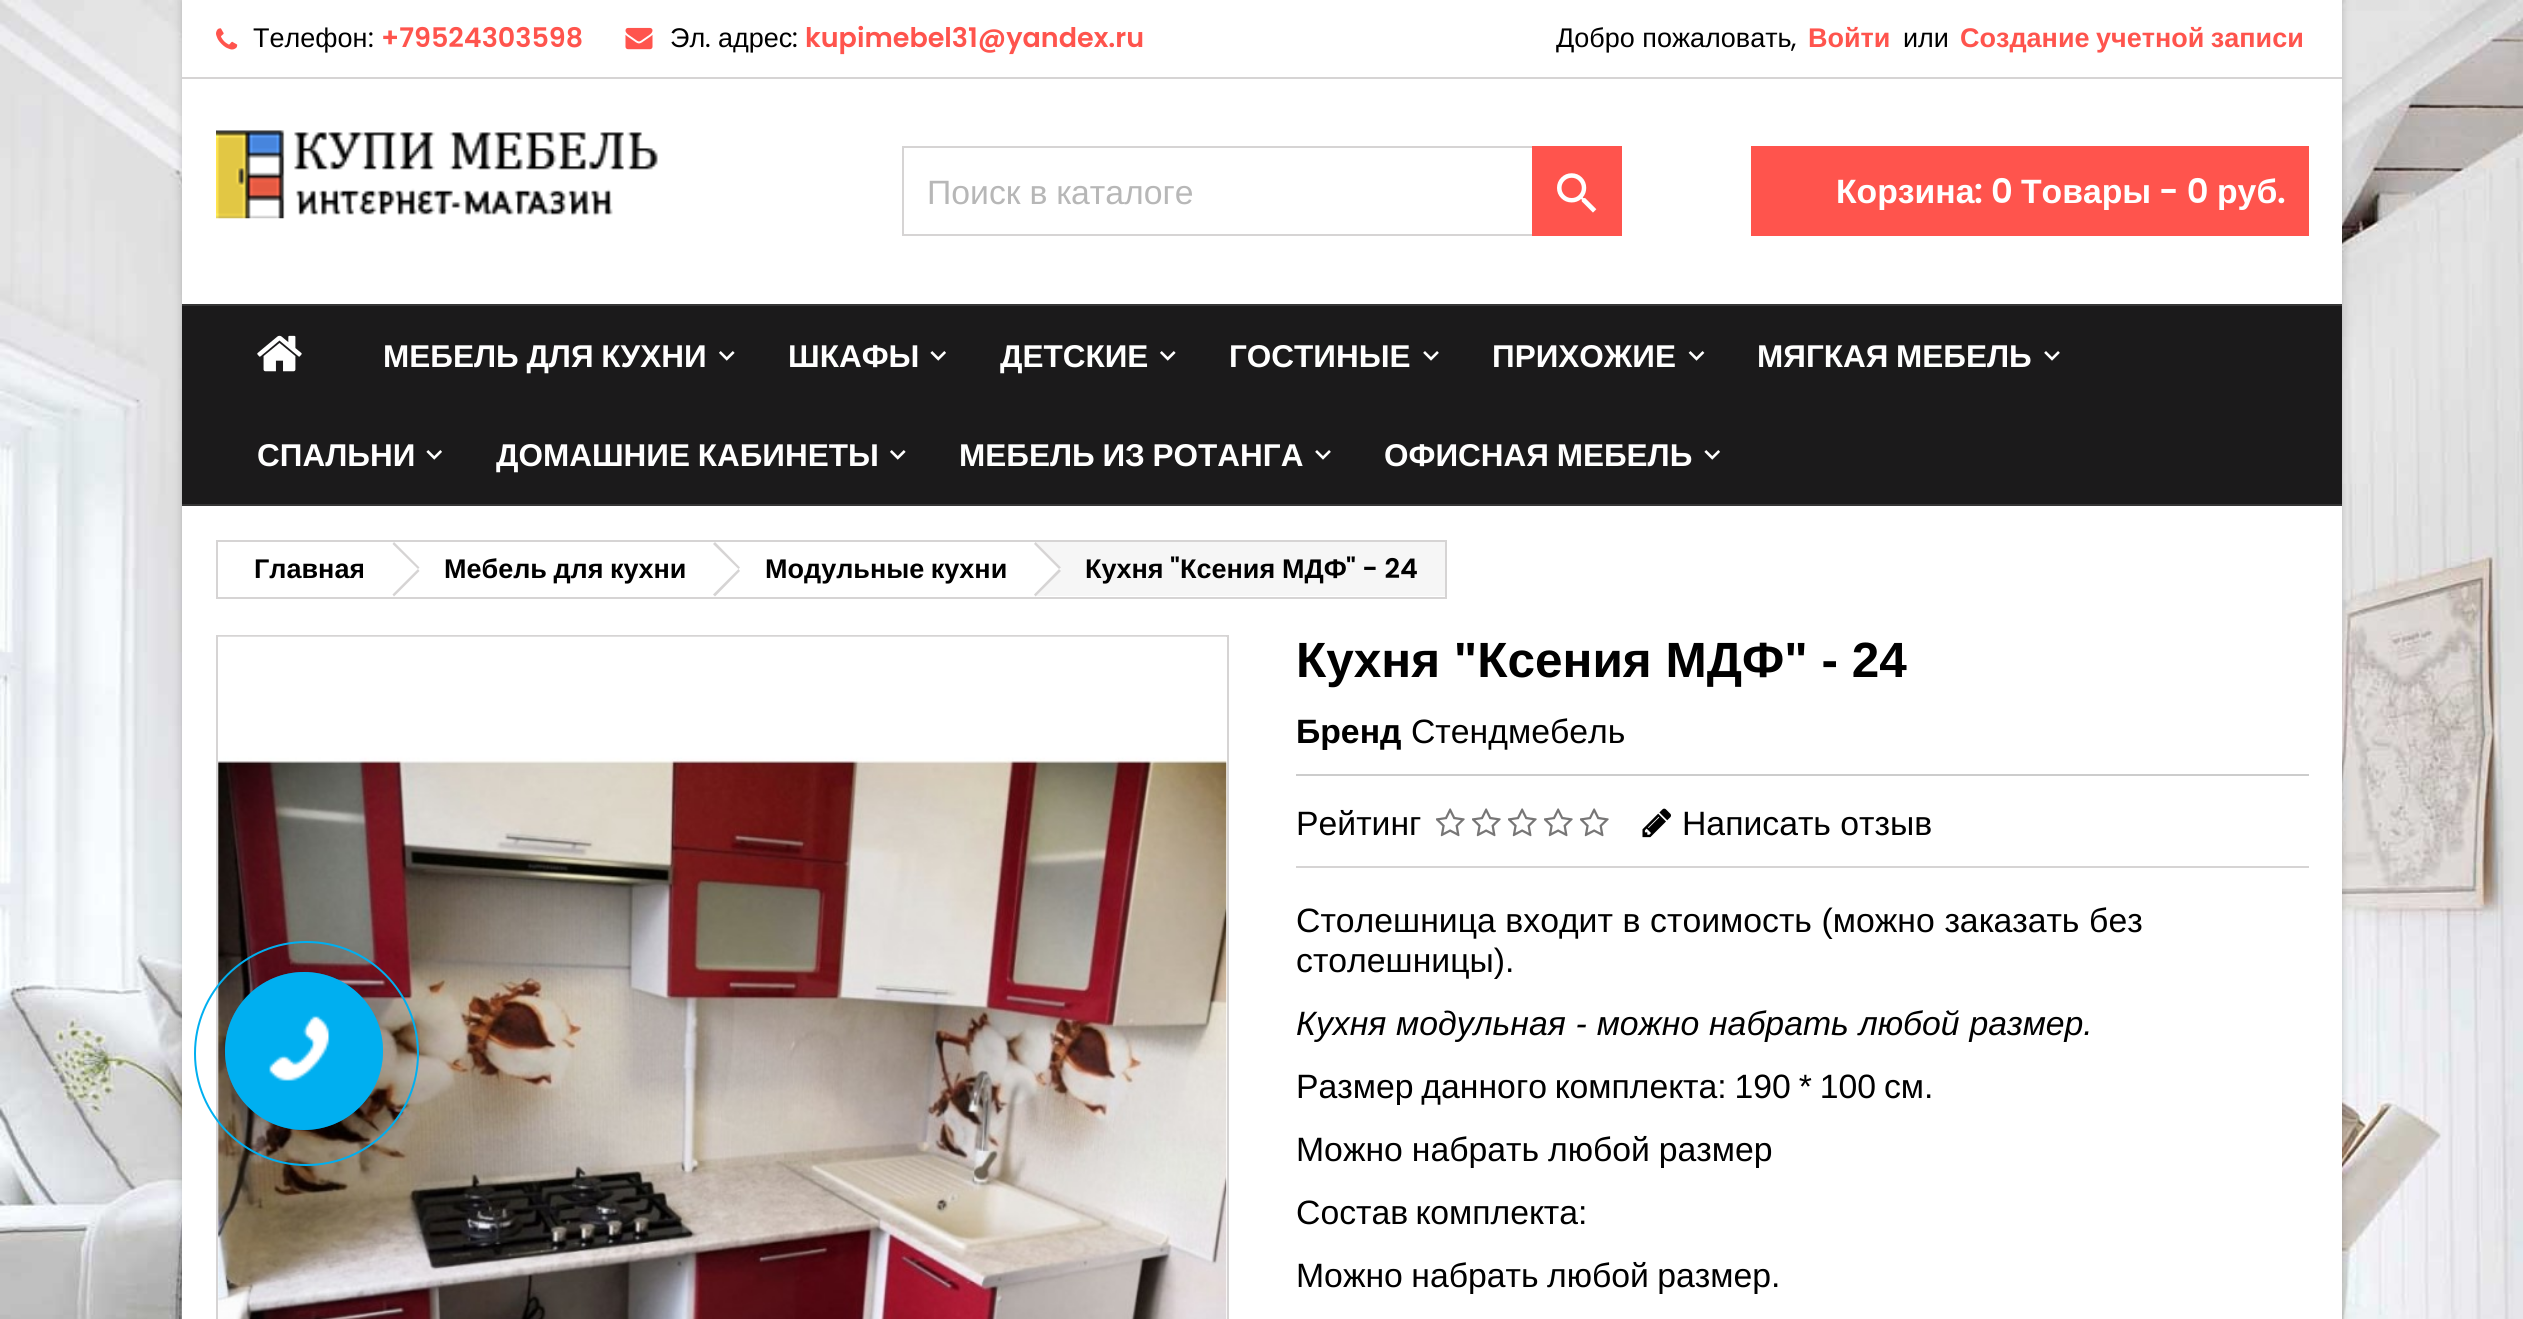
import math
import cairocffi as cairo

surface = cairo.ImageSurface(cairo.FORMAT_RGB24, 2523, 1319)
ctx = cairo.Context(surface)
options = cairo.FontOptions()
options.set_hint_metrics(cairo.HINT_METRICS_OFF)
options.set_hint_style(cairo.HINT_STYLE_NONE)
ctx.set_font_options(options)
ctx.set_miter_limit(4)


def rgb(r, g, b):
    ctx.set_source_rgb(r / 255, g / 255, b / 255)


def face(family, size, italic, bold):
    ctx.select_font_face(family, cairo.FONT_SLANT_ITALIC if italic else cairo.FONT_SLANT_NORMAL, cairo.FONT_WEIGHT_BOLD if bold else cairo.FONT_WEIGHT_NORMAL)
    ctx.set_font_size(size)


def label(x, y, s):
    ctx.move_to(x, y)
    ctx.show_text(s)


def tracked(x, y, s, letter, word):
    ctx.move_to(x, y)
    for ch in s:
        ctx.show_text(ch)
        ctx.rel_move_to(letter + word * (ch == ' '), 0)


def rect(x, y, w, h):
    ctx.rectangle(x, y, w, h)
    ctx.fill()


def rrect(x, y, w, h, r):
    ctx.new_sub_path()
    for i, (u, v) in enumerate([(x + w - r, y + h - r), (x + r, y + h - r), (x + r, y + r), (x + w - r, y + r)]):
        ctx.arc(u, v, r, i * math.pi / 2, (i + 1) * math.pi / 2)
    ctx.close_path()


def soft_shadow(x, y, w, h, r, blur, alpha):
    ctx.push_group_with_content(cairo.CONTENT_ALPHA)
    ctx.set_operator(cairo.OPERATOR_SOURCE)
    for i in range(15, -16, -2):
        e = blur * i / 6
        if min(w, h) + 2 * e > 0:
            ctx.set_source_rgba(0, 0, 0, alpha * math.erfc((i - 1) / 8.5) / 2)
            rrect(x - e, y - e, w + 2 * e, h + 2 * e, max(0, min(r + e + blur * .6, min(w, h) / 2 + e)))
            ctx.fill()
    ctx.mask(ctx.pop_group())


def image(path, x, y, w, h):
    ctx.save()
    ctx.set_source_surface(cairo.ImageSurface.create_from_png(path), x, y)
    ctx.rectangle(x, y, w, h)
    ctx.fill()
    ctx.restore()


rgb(255, 255, 255)
ctx.paint()
image('image0.png', 0, 0, 2523, 1319)
rgb(0, 0, 0)
soft_shadow(182, 0, 2160, 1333, 0, 4.5, 0.2)
rgb(255, 255, 255)
rect(182, 0, 2160, 1319)
rgb(214, 212, 212)
rect(182, 77, 2160, 2)
image('image1.png', 216, 28, 22, 22)
face('Liberation Sans', 27, 0, 0)
rgb(0, 0, 0)
label(253, 47, 'Телефон')
face('Poppins', 27, 0, 0)
label(368, 47, ':')
face('Poppins SemiBold', 27, 0, 0)
rgb(255, 84, 77)
label(381, 47, '+79524303598')
image('image2.png', 625, 27, 28, 23)
face('Liberation Sans', 27, 0, 0)
rgb(0, 0, 0)
label(670, 47, 'Эл')
face('Poppins', 27, 0, 0)
label(705, 47, '.')
face('Liberation Sans', 27, 0, 0)
label(718, 47, 'адрес')
face('Poppins', 27, 0, 0)
label(792, 47, ':')
face('Poppins SemiBold', 27, 0, 0)
rgb(255, 84, 77)
label(805, 47, 'kupimebel31@yandex.ru')
face('Liberation Sans', 27, 0, 0)
rgb(0, 0, 0)
label(1556, 47, 'Добро пожаловать')
face('Poppins', 27, 0, 0)
label(1791, 47, ',')
face('Liberation Sans', 27, 0, 1)
rgb(255, 84, 77)
label(1808, 47, 'Войти')
face('Liberation Sans', 27, 0, 0)
rgb(0, 0, 0)
label(1903, 47, 'или')
face('Liberation Sans', 27, 0, 1)
rgb(255, 84, 77)
tracked(1960, 47, 'Создание учетной записи', 0, -1)
image('image3.png', 216, 130, 442, 89)
ctx.rectangle(903, 147, 718, 88)
rgb(214, 212, 212)
ctx.stroke()
face('Liberation Sans', 33.75, 0, 0)
rgb(183, 183, 183)
tracked(927, 204, 'Поиск в каталоге', 0, -0.5)
rgb(255, 84, 77)
rect(1532, 146, 90, 90)
image('image4.png', 1557, 173, 40, 40)
rect(1751, 146, 558, 90)
face('Liberation Sans', 33.75, 0, 1)
rgb(255, 255, 255)
label(1836, 203, 'Корзина')
face('Poppins SemiBold', 33.75, 0, 0)
label(1974, 203, ': 0')
face('Liberation Sans', 33.75, 0, 1)
label(2021, 203, 'Товары')
face('Poppins SemiBold', 33.75, 0, 0)
label(2159, 203, '- 0')
face('Liberation Sans', 33.75, 0, 1)
label(2217, 203, 'руб')
face('Poppins SemiBold', 33.75, 0, 0)
label(2277, 203, '.')
rgb(27, 26, 27)
rect(182, 306, 2160, 198)
rgb(54, 54, 54)
rect(182, 304, 2160, 2)
rect(182, 504, 2160, 2)
image('image5.png', 257, 335, 45, 37)
face('Liberation Sans', 31.5, 0, 1)
rgb(255, 255, 255)
tracked(383, 367, 'МЕБЕЛЬ ДЛЯ КУХНИ', 0, -1)
image('image6.png', 719, 351, 16, 10)
label(788, 367, 'ШКАФЫ')
image('image7.png', 930, 351, 16, 10)
label(1000, 367, 'ДЕТСКИЕ')
image('image6.png', 1160, 351, 16, 10)
label(1229, 367, 'ГОСТИНЫЕ')
image('image8.png', 1423, 351, 16, 10)
label(1492, 367, 'ПРИХОЖИЕ')
image('image9.png', 1688, 351, 17, 10)
tracked(1757, 367, 'МЯГКАЯ МЕБЕЛЬ', 0, -1)
image('image8.png', 2044, 351, 16, 10)
label(257, 466, 'СПАЛЬНИ')
image('image7.png', 426, 450, 16, 10)
tracked(496, 466, 'ДОМАШНИЕ КАБИНЕТЫ', 0, -1)
image('image6.png', 890, 450, 16, 10)
tracked(959, 466, 'МЕБЕЛЬ ИЗ РОТАНГА', 0, -1)
image('image8.png', 1315, 450, 16, 10)
tracked(1384, 466, 'ОФИСНАЯ МЕБЕЛЬ', 0, -1)
image('image7.png', 1704, 450, 16, 10)
ctx.rectangle(217, 541, 1229, 57)
rgb(214, 212, 212)
ctx.stroke()
face('Liberation Sans', 27, 0, 1)
rgb(0, 0, 0)
label(254, 578, 'Главная')
rgb(214, 212, 212)
ctx.new_path()
ctx.move_to(394, 542)
ctx.line_to(419.5, 567.5)
ctx.line_to(418, 569)
ctx.line_to(392.5, 544)
ctx.close_path()
ctx.move_to(418, 569)
ctx.line_to(419.5, 571)
ctx.line_to(394, 596.5)
ctx.line_to(392.5, 594.5)
ctx.close_path()
ctx.fill()
rgb(0, 0, 0)
tracked(444, 578, 'Мебель для кухни', 0, -1)
rgb(214, 212, 212)
ctx.new_path()
ctx.move_to(715, 542)
ctx.line_to(740, 567.5)
ctx.line_to(738.5, 569)
ctx.line_to(713, 544)
ctx.close_path()
ctx.move_to(738.5, 569)
ctx.line_to(740, 571)
ctx.line_to(715, 596.5)
ctx.line_to(713, 594.5)
ctx.close_path()
ctx.fill()
rgb(0, 0, 0)
tracked(765, 578, 'Модульные кухни', 0, -1)
rgb(246, 246, 246)
rect(1035, 542, 410, 54)
rgb(255, 255, 255)
ctx.new_path()
ctx.move_to(1037, 544)
ctx.line_to(1059, 566)
ctx.curve_to(1061, 568, 1061, 571, 1059, 572)
ctx.line_to(1037, 595)
ctx.curve_to(1035, 596, 1032, 596, 1031, 595)
ctx.line_to(1008, 572)
ctx.curve_to(1007, 571, 1007, 568, 1008, 566)
ctx.line_to(1031, 544)
ctx.curve_to(1032, 542, 1035, 542, 1037, 544)
ctx.close_path()
ctx.fill()
rgb(214, 212, 212)
ctx.new_path()
ctx.move_to(1035.5, 542)
ctx.line_to(1061, 567.5)
ctx.line_to(1059, 569)
ctx.line_to(1034, 544)
ctx.close_path()
ctx.move_to(1059, 569)
ctx.line_to(1061, 571)
ctx.line_to(1035.5, 596.5)
ctx.line_to(1034, 594.5)
ctx.close_path()
ctx.fill()
rgb(0, 0, 0)
label(1085, 578, 'Кухня')
face('Poppins SemiBold', 27, 0, 0)
label(1170, 578, '"')
face('Liberation Sans', 27, 0, 1)
label(1180, 578, 'Ксения')
label(1282, 578, 'МДФ')
face('Poppins SemiBold', 27, 0, 0)
label(1346, 578, '" - 24')
ctx.rectangle(217, 636, 1011, 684)
rgb(214, 212, 212)
ctx.stroke()
image('image10.png', 218, 636, 1009, 683)
face('Liberation Sans', 49.5, 0, 1)
rgb(0, 0, 0)
label(1296, 677, 'Кухня "Ксения МДФ" - 24')
face('Liberation Sans', 33.75, 0, 1)
label(1296, 743, 'Бренд')
face('Liberation Sans', 33.75, 0, 0)
label(1411, 743, 'Стендмебель')
rgb(204, 204, 204)
rect(1296, 774, 1013, 2)
rgb(0, 0, 0)
label(1296, 835, 'Рейтинг')
image('image11.png', 1436, 808, 29, 29)
image('image11.png', 1472, 808, 29, 29)
image('image11.png', 1508, 808, 29, 29)
image('image11.png', 1544, 808, 29, 29)
image('image11.png', 1580, 808, 29, 29)
image('image12.png', 1642, 808, 29, 30)
label(1682, 835, 'Написать отзыв')
rgb(214, 212, 212)
rect(1296, 866, 1013, 2)
rgb(0, 0, 0)
tracked(1296, 932, 'Столешница входит в стоимость (можно заказать без', 0, 0.25)
label(1296, 972, 'столешницы).')
face('Liberation Sans', 33.75, 1, 0)
tracked(1296, 1035, 'Кухня модульная - можно набрать любой размер.', 0, 0.5)
face('Liberation Sans', 33.75, 0, 0)
tracked(1296, 1098, 'Размер данного комплекта: 190 * 100 см.', 0, -1.5)
tracked(1296, 1161, 'Можно набрать любой размер', 0, -0.5)
tracked(1296, 1224, 'Состав комплекта:', 0, -2)
tracked(1296, 1287, 'Можно набрать любой размер.', 0, -1)
ctx.new_path()
ctx.arc(304, 1051, 78, 0, 2 * math.pi)
ctx.set_source_rgba(0, 0.686, 0.941, 0.5)
ctx.stroke()
ctx.arc(306.5, 1053.5, 111.5, 0, 2 * math.pi)
rgb(0, 175, 240)
ctx.stroke()
ctx.arc(304, 1051, 79, 0, 2 * math.pi)
ctx.fill()
image('image13.png', 269, 1015, 61, 66)
surface.write_to_png('render.png')
